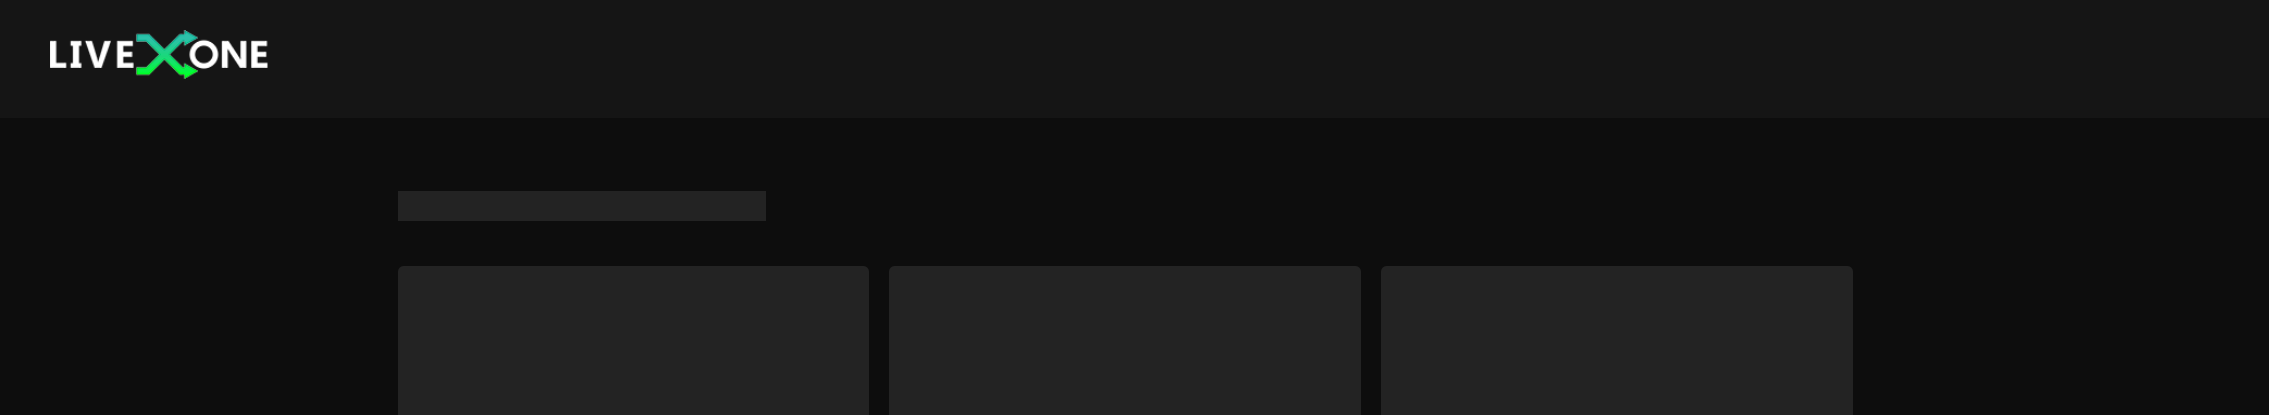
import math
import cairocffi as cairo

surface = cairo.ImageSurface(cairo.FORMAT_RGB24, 2269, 415)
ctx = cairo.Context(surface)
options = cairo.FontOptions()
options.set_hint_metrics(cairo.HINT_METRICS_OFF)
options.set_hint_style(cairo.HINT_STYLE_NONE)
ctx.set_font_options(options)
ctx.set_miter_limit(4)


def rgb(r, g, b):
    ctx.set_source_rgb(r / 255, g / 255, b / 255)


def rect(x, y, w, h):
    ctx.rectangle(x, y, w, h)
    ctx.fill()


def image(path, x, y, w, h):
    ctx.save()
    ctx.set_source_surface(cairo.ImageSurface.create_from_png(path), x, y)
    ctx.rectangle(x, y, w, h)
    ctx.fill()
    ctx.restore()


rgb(13, 13, 13)
ctx.paint()
rgb(21, 21, 21)
rect(0, 0, 2269, 118)
image('image0.png', 50, 30, 218, 49)
rgb(35, 35, 35)
rect(398, 191, 368, 30)
gradient = cairo.LinearGradient(-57, 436, 983, 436)
gradient.add_color_stop_rgba(0, 0.137, 0.137, 0.137, 1)
gradient.add_color_stop_rgba(0.2, 0.176, 0.176, 0.176, 1)
gradient.add_color_stop_rgba(0.4, 0.137, 0.137, 0.137, 1)
gradient.add_color_stop_rgba(1, 0.137, 0.137, 0.137, 1)
ctx.set_source(gradient)
ctx.new_path()
ctx.move_to(404, 266)
ctx.line_to(863, 266)
ctx.curve_to(866.5, 266, 869, 268.5, 869, 272)
ctx.line_to(869, 415)
ctx.line_to(398, 415)
ctx.line_to(398, 272)
ctx.curve_to(398, 268.5, 400.5, 266, 404, 266)
ctx.close_path()
ctx.fill()
gradient = cairo.LinearGradient(434, 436, 1474, 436)
gradient.add_color_stop_rgba(0, 0.137, 0.137, 0.137, 1)
gradient.add_color_stop_rgba(0.2, 0.176, 0.176, 0.176, 1)
gradient.add_color_stop_rgba(0.4, 0.137, 0.137, 0.137, 1)
gradient.add_color_stop_rgba(1, 0.137, 0.137, 0.137, 1)
ctx.set_source(gradient)
ctx.new_path()
ctx.move_to(895, 266)
ctx.line_to(1355, 266)
ctx.curve_to(1358.5, 266, 1361, 268.5, 1361, 272)
ctx.line_to(1361, 415)
ctx.line_to(889, 415)
ctx.line_to(889, 272)
ctx.curve_to(889, 268.5, 891.5, 266, 895, 266)
ctx.close_path()
ctx.fill()
gradient = cairo.LinearGradient(926, 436, 1966, 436)
gradient.add_color_stop_rgba(0, 0.137, 0.137, 0.137, 1)
gradient.add_color_stop_rgba(0.2, 0.176, 0.176, 0.176, 1)
gradient.add_color_stop_rgba(0.4, 0.137, 0.137, 0.137, 1)
gradient.add_color_stop_rgba(1, 0.137, 0.137, 0.137, 1)
ctx.set_source(gradient)
ctx.new_path()
ctx.move_to(1387, 266)
ctx.line_to(1847, 266)
ctx.curve_to(1850.5, 266, 1853, 268.5, 1853, 272)
ctx.line_to(1853, 415)
ctx.line_to(1381, 415)
ctx.line_to(1381, 272)
ctx.curve_to(1381, 268.5, 1383.5, 266, 1387, 266)
ctx.close_path()
ctx.fill()
surface.write_to_png('render.png')
